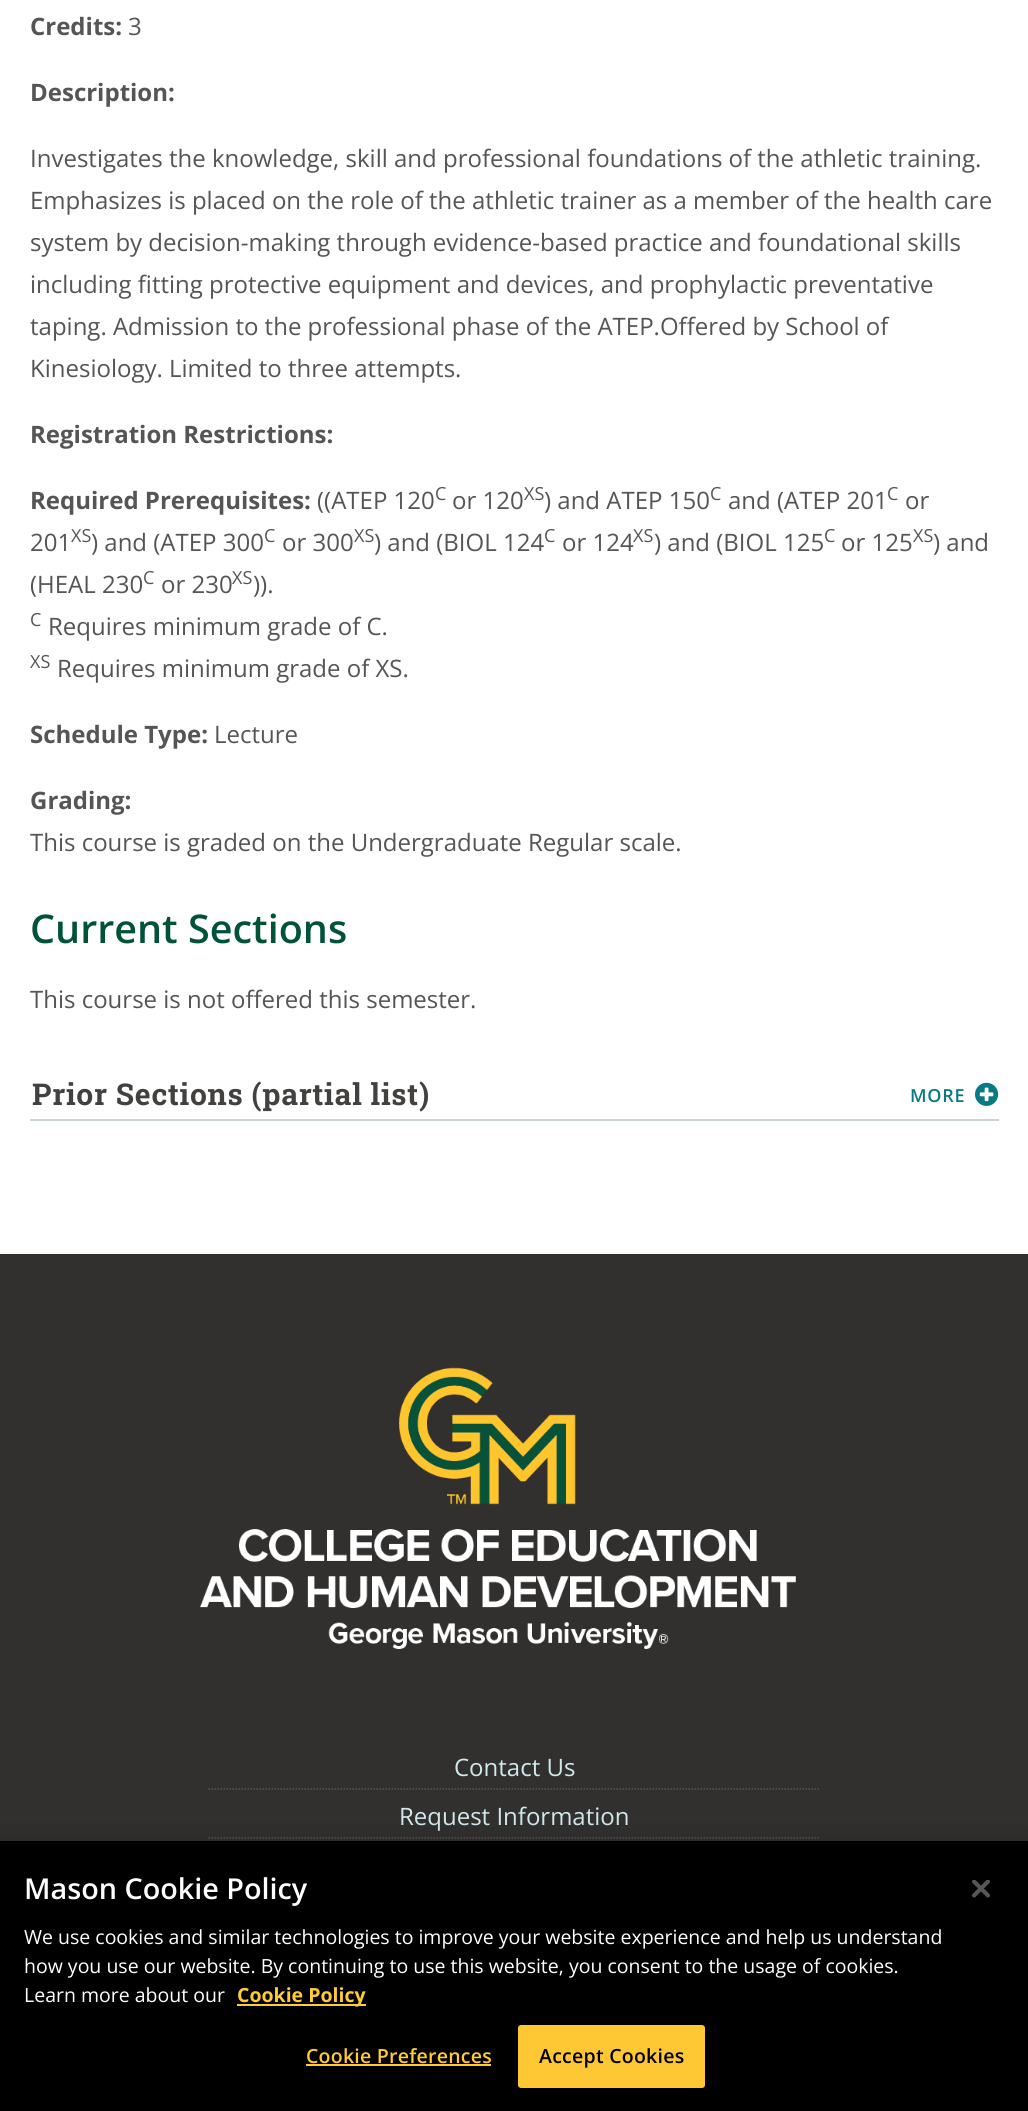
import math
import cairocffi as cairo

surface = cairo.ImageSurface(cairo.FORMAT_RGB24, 1028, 2111)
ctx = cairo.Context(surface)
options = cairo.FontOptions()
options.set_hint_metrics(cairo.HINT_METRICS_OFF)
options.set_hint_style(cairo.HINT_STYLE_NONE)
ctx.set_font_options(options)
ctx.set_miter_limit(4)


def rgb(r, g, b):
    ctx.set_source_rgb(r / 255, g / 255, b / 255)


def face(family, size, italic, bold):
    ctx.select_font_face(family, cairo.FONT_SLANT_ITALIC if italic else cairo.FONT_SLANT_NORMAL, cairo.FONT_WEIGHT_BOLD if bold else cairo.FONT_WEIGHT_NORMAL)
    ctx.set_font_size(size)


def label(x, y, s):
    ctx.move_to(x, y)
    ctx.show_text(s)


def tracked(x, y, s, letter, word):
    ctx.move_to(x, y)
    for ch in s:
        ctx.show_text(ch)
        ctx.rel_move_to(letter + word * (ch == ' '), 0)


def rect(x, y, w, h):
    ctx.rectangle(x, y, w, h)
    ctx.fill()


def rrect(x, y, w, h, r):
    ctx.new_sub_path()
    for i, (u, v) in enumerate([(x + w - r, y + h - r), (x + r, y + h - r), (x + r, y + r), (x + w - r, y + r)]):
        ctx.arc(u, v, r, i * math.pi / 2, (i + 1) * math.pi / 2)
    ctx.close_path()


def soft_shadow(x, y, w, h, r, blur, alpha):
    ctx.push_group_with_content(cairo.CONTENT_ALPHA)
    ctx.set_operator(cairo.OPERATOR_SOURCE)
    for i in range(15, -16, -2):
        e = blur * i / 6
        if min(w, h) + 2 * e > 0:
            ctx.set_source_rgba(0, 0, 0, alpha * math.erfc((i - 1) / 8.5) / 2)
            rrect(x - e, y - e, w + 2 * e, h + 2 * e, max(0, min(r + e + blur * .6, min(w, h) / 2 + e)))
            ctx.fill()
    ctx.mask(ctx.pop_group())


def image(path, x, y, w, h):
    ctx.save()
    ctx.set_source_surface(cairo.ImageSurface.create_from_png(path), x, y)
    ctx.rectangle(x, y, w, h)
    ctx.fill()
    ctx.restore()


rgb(255, 255, 255)
ctx.paint()
face('Open Sans', 24, 0, 1)
rgb(85, 85, 85)
label(30, 35, 'Credits:')
face('Open Sans', 24, 0, 0)
label(128, 35, '3')
face('Open Sans', 24, 0, 1)
label(30, 101, 'Description:')
face('Open Sans', 24, 0, 0)
label(30, 167, 'Investigates the knowledge, skill and professional foundations of the athletic training.')
label(30, 209, 'Emphasizes is placed on the role of the athletic trainer as a member of the health care')
label(30, 251, 'system by decision-making through evidence-based practice and foundational skills')
label(30, 293, 'including fitting protective equipment and devices, and prophylactic preventative')
label(30, 335, 'taping. Admission to the professional phase of the ATEP.Offered by School of')
label(30, 377, 'Kinesiology. Limited to three attempts.')
face('Open Sans', 24, 0, 1)
label(30, 443, 'Registration Restrictions:')
label(30, 509, 'Required Prerequisites:')
face('Open Sans', 24, 0, 0)
label(317, 509, '((ATEP 120')
face('Open Sans', 18, 0, 0)
label(435, 500, 'C')
face('Open Sans', 24, 0, 0)
label(452, 509, 'or 120')
face('Open Sans', 18, 0, 0)
label(524, 500, 'XS')
face('Open Sans', 24, 0, 0)
label(544, 509, ') and ATEP 150')
face('Open Sans', 18, 0, 0)
label(710, 500, 'C')
face('Open Sans', 24, 0, 0)
label(728, 509, 'and (ATEP 201')
face('Open Sans', 18, 0, 0)
label(887, 500, 'C')
face('Open Sans', 24, 0, 0)
label(905, 509, 'or')
label(30, 551, '201')
face('Open Sans', 18, 0, 0)
label(71, 542, 'XS')
face('Open Sans', 24, 0, 0)
label(91, 551, ') and (ATEP 300')
face('Open Sans', 18, 0, 0)
label(264, 542, 'C')
face('Open Sans', 24, 0, 0)
label(282, 551, 'or 300')
face('Open Sans', 18, 0, 0)
label(354, 542, 'XS')
face('Open Sans', 24, 0, 0)
label(374, 551, ') and (BIOL 124')
face('Open Sans', 18, 0, 0)
label(544, 542, 'C')
face('Open Sans', 24, 0, 0)
label(562, 551, 'or 124')
face('Open Sans', 18, 0, 0)
label(633, 542, 'XS')
face('Open Sans', 24, 0, 0)
label(654, 551, ') and (BIOL 125')
face('Open Sans', 18, 0, 0)
label(824, 542, 'C')
face('Open Sans', 24, 0, 0)
label(841, 551, 'or 125')
face('Open Sans', 18, 0, 0)
label(913, 542, 'XS')
face('Open Sans', 24, 0, 0)
label(933, 551, ') and')
label(30, 593, '(HEAL 230')
face('Open Sans', 18, 0, 0)
label(143, 584, 'C')
face('Open Sans', 24, 0, 0)
label(161, 593, 'or 230')
face('Open Sans', 18, 0, 0)
label(232, 584, 'XS')
face('Open Sans', 24, 0, 0)
label(253, 593, ')).')
face('Open Sans', 18, 0, 0)
label(30, 626, 'C')
face('Open Sans', 24, 0, 0)
label(48, 635, 'Requires minimum grade of C.')
face('Open Sans', 18, 0, 0)
label(30, 668, 'XS')
face('Open Sans', 24, 0, 0)
label(57, 677, 'Requires minimum grade of XS.')
face('Open Sans', 24, 0, 1)
label(30, 743, 'Schedule Type:')
face('Open Sans', 24, 0, 0)
label(214, 743, 'Lecture')
face('Open Sans', 24, 0, 1)
label(30, 809, 'Grading:')
face('Open Sans', 24, 0, 0)
label(30, 851, 'This course is graded on the Undergraduate Regular scale.')
face('Open Sans SemiBold', 39.5, 0, 0)
rgb(0, 82, 57)
label(30, 943, 'Current Sections')
face('Open Sans', 24, 0, 0)
rgb(85, 85, 85)
label(30, 1008, 'This course is not offered this semester.')
rgb(205, 213, 212)
rect(30, 1119, 969, 2)
face('Roboto Slab', 30, 0, 1)
rgb(66, 65, 63)
tracked(32, 1105, 'Prior Sections (partial list)', 0.75, 0)
face('Open Sans SemiBold', 18, 0, 0)
rgb(9, 121, 132)
tracked(910, 1102, 'MORE', 0.75, 0)
image('image0.png', 975, 1082, 24, 24)
rgb(49, 48, 47)
rect(0, 1254, 1028, 587)
image('image1.png', 200, 1367, 596, 282)
ctx.new_path()
ctx.move_to(208.5, 1789)
ctx.line_to(820.5, 1789)
rgb(85, 85, 85)
ctx.set_line_width(1.5)
ctx.set_dash([1.5, 1.5])
ctx.stroke()
face('Open Sans', 24, 0, 0)
rgb(209, 233, 235)
label(454, 1776, 'Contact Us')
ctx.new_path()
ctx.move_to(208.5, 1838)
ctx.line_to(820.5, 1838)
rgb(85, 85, 85)
ctx.stroke()
rgb(209, 233, 235)
label(399, 1825, 'Request Information')
rgb(0, 0, 0)
soft_shadow(0, 1841, 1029, 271, 0, 13.5, 0.2)
rgb(0, 0, 0)
rect(0, 1841, 1028, 270)
face('Open Sans SemiBold', 28.75, 0, 0)
rgb(255, 255, 255)
label(24, 1899, 'Mason Cookie Policy')
face('Open Sans', 19.5, 0, 0)
label(24, 1944, 'We use cookies and similar technologies to improve your website experience and help us understand')
label(24, 1973, 'how you use our website. By continuing to use this website, you consent to the usage of cookies.')
label(24, 2002, 'Learn more about our')
rgb(255, 204, 51)
rect(237, 2004, 129, 2)
face('Open Sans', 19.5, 0, 1)
label(237, 2002, 'Cookie Policy')
face('Open Sans SemiBold', 19.5, 0, 0)
tracked(306, 2063, 'Cookie Preferences', 0.25, 0)
rect(306, 2064, 185, 2)
rgb(254, 199, 52)
rrect(519, 2026, 185, 61, 2)
ctx.fill_preserve()
ctx.set_line_width(2)
ctx.set_dash([])
ctx.stroke()
rgb(0, 0, 0)
tracked(539, 2063, 'Accept Cookies', 0.25, 0)
image('image2.png', 972, 1880, 18, 18)
surface.write_to_png('render.png')
